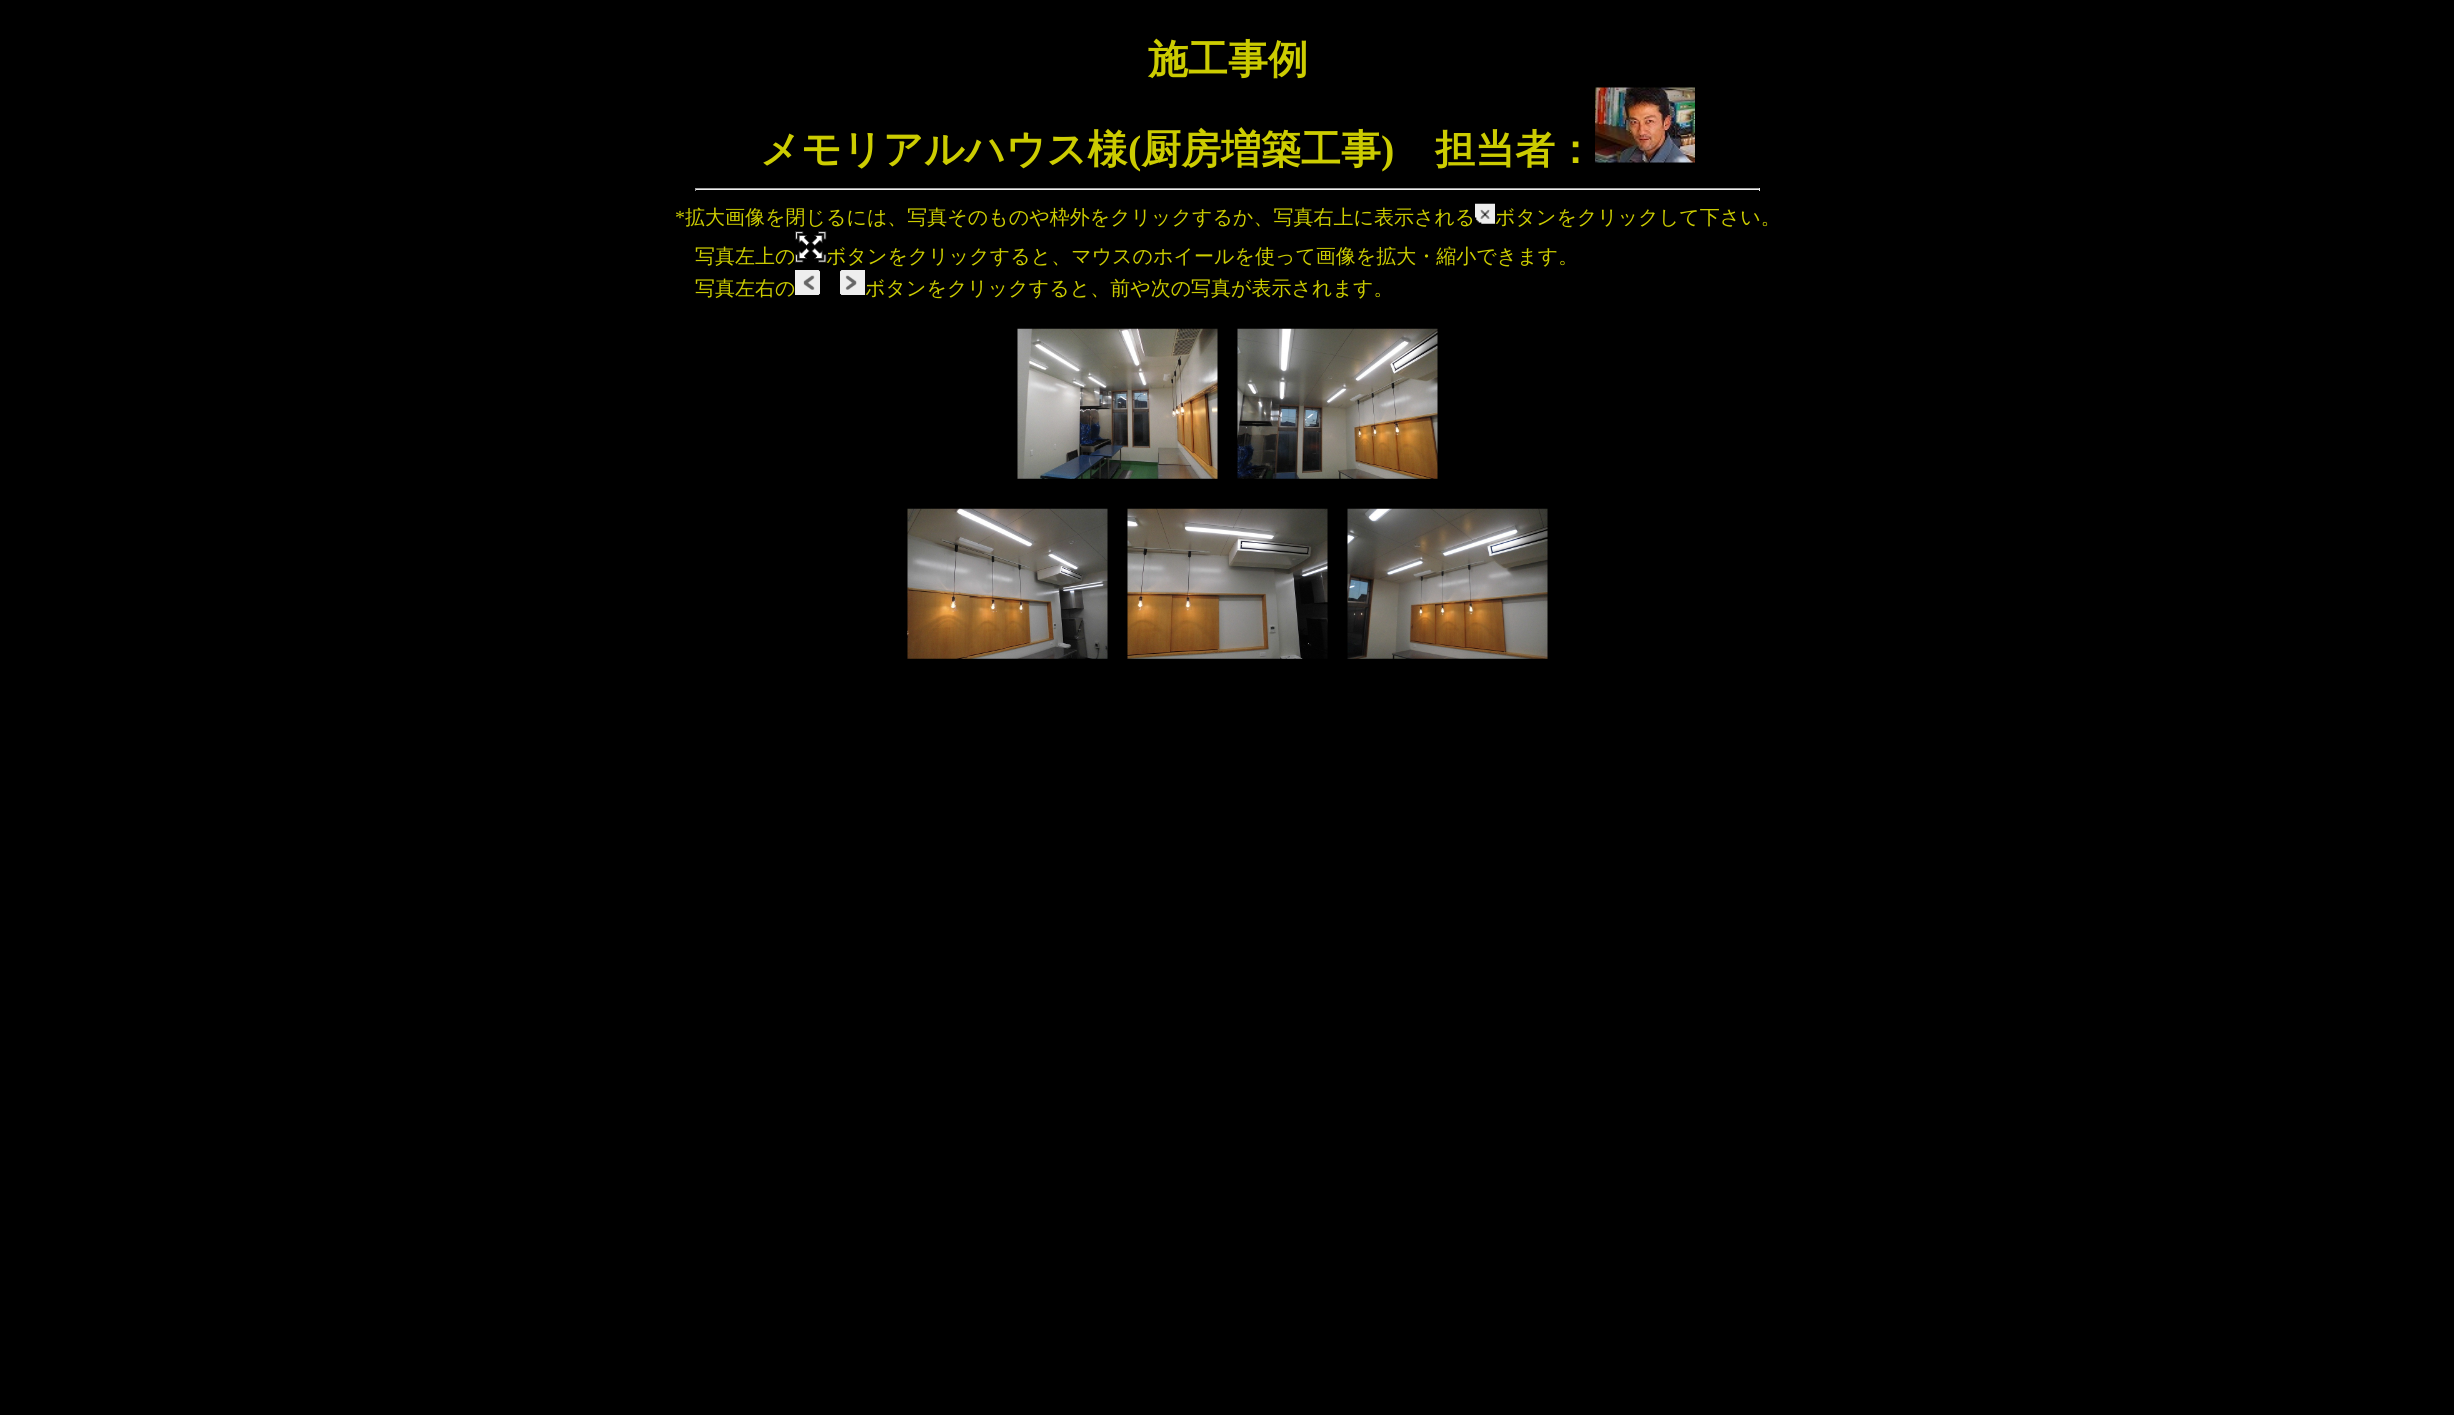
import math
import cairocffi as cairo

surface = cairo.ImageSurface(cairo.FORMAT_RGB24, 2454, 1415)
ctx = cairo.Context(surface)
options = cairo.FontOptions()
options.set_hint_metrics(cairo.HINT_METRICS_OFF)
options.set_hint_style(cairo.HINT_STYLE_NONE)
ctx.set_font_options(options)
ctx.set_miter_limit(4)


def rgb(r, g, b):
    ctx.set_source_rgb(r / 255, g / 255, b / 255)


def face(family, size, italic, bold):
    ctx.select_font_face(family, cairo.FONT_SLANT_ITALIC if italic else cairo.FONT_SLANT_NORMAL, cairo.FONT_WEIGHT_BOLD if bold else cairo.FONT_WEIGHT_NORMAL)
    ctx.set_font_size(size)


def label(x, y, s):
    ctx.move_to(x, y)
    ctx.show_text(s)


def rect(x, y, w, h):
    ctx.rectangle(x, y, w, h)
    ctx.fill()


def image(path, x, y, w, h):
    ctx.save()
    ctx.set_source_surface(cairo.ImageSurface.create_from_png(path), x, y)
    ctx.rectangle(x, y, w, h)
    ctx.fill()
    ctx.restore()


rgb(0, 0, 0)
ctx.paint()
face('WenQuanYi Zen Hei', 40, 0, 1)
rgb(204, 204, 0)
label(1148, 73, '施工事例')
label(760, 163, 'メモリアルハウス様')
face('Liberation Serif', 40, 0, 1)
label(1128, 163, '(')
face('WenQuanYi Zen Hei', 40, 0, 1)
label(1141, 163, '厨房増築工事')
face('Liberation Serif', 40, 0, 1)
label(1381, 163, ')')
face('WenQuanYi Zen Hei', 40, 0, 1)
label(1435, 163, '担当者：')
image('image0.png', 1595, 87, 100, 76)
rgb(159, 159, 159)
rect(695, 188, 1065, 1)
rgb(238, 238, 238)
rect(1759, 188, 1, 3)
rect(695, 189, 1065, 1)
rgb(159, 159, 159)
rect(695, 188, 1, 3)
face('Liberation Serif', 20, 0, 0)
rgb(204, 204, 0)
label(675, 224, '*')
face('WenQuanYi Zen Hei Medium', 20, 0, 0)
label(685, 224, '拡大画像を閉じるには、写真そのものや枠外をクリックするか、写真右上に表示される')
image('image1.png', 1475, 203, 20, 21)
label(1495, 224, 'ボタンをクリックして下さい。')
label(695, 263, '写真左上の')
image('image2.png', 795, 231, 32, 32)
label(826, 263, 'ボタンをクリックすると、マウスのホイールを使って画像を拡大・縮小できます。')
label(695, 295, '写真左右の')
image('image3.png', 795, 270, 25, 25)
image('image4.png', 840, 270, 25, 25)
label(865, 295, 'ボタンをクリックすると、前や次の写真が表示されます。')
image('image5.png', 1017, 328, 201, 151)
image('image6.png', 1237, 328, 201, 151)
image('image7.png', 907, 508, 201, 151)
image('image8.png', 1127, 508, 201, 151)
image('image9.png', 1347, 508, 201, 151)
surface.write_to_png('render.png')
